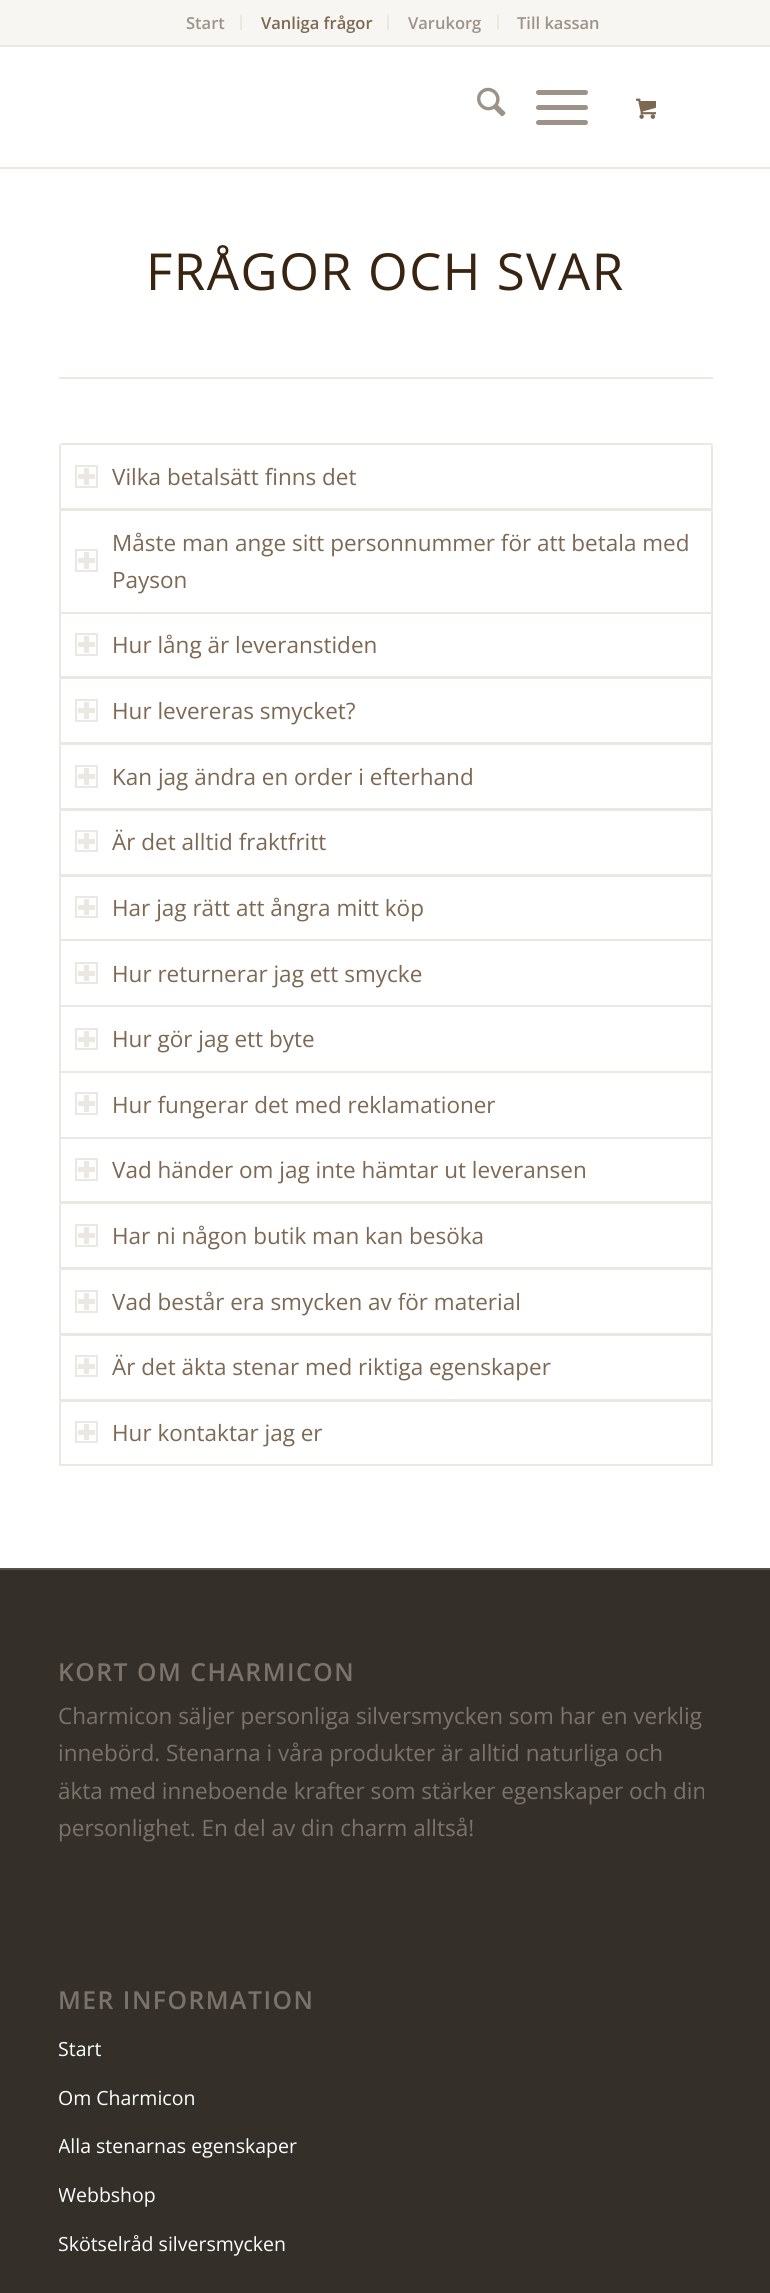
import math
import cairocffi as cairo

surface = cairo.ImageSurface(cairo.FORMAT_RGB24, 770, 2293)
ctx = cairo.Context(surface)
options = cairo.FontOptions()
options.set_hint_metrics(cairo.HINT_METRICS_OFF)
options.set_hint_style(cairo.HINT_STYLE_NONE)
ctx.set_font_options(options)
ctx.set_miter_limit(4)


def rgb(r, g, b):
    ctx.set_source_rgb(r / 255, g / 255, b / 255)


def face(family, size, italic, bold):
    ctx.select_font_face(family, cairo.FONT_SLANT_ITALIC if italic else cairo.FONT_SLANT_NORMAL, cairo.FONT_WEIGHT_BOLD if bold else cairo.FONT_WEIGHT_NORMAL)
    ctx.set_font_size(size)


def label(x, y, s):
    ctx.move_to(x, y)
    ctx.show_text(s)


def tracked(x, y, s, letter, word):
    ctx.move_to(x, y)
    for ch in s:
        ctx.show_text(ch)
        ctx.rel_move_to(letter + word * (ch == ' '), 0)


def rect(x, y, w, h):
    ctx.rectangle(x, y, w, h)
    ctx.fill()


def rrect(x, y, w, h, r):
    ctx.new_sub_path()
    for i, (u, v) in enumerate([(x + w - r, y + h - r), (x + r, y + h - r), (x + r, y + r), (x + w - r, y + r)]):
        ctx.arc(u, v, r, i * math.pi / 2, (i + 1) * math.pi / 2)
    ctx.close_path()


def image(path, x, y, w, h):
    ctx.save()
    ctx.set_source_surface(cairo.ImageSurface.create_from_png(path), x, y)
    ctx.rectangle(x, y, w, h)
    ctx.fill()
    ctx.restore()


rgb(255, 255, 255)
ctx.paint()
rgb(248, 246, 242)
rect(0, 0, 770, 45)
rgb(235, 232, 226)
rect(0, 45, 770, 2)
rect(240, 15, 2, 15)
face('Open Sans SemiBold', 16.5, 0, 0)
rgb(156, 146, 136)
label(186, 29, 'Start')
rgb(235, 232, 226)
rect(387, 15, 2, 15)
rgb(124, 104, 83)
label(261, 29, 'Vanliga frågor')
rgb(235, 232, 226)
rect(497, 15, 2, 15)
rgb(156, 146, 136)
label(408, 29, 'Varukorg')
label(517, 29, 'Till kassan')
rgb(235, 232, 226)
rect(0, 167, 770, 2)
image('image0.png', 477, 87, 29, 30)
rgb(156, 146, 136)
rrect(536, 105, 52, 5, 2.5)
ctx.fill()
rrect(536, 90, 52, 5, 2.5)
ctx.fill()
rrect(536, 120, 52, 5, 2.5)
ctx.fill()
image('image1.png', 636, 98, 20, 21)
face('Open Sans', 51, 0, 0)
rgb(56, 36, 16)
tracked(146, 290, 'FRÅGOR OCH SVAR', 1.5, 0)
rgb(235, 232, 226)
rect(59, 377, 654, 2)
ctx.new_path()
ctx.move_to(62, 444)
ctx.line_to(710, 444)
ctx.curve_to(711, 444, 712, 445, 712, 446)
ctx.line_to(712, 509)
ctx.line_to(60, 509)
ctx.line_to(60, 446)
ctx.curve_to(60, 445, 61, 444, 62, 444)
ctx.close_path()
ctx.stroke()
ctx.rectangle(76, 466, 21, 21)
ctx.stroke()
rect(84, 468, 5, 17)
rect(78, 474, 17, 5)
face('Open Sans', 22.5, 0, 0)
rgb(124, 104, 83)
label(112, 485, 'Vilka betalsätt finns det')
rgb(255, 255, 255)
ctx.new_path()
ctx.move_to(62, 510)
ctx.line_to(710, 510)
ctx.curve_to(711, 510, 712, 511, 712, 512)
ctx.line_to(712, 613)
ctx.line_to(60, 613)
ctx.line_to(60, 512)
ctx.curve_to(60, 511, 61, 510, 62, 510)
ctx.close_path()
ctx.fill_preserve()
rgb(235, 232, 226)
ctx.stroke()
rgb(124, 104, 83)
label(112, 551, 'Måste man ange sitt personnummer för att betala med')
ctx.rectangle(76, 550, 21, 21)
rgb(235, 232, 226)
ctx.stroke()
rect(84, 552, 5, 17)
rect(78, 558, 17, 5)
rgb(124, 104, 83)
label(112, 588, 'Payson')
rgb(255, 255, 255)
ctx.new_path()
ctx.move_to(62, 613)
ctx.line_to(710, 613)
ctx.curve_to(711, 613, 712, 614, 712, 615)
ctx.line_to(712, 677)
ctx.line_to(60, 677)
ctx.line_to(60, 615)
ctx.curve_to(60, 614, 61, 613, 62, 613)
ctx.close_path()
ctx.fill_preserve()
rgb(235, 232, 226)
ctx.stroke()
ctx.rectangle(76, 634, 21, 21)
ctx.stroke()
rect(84, 636, 5, 17)
rect(78, 642, 17, 5)
rgb(124, 104, 83)
label(112, 653, 'Hur lång är leveranstiden')
rgb(255, 255, 255)
ctx.new_path()
ctx.move_to(62, 678)
ctx.line_to(710, 678)
ctx.curve_to(711, 678, 712, 679, 712, 680)
ctx.line_to(712, 743)
ctx.line_to(60, 743)
ctx.line_to(60, 680)
ctx.curve_to(60, 679, 61, 678, 62, 678)
ctx.close_path()
ctx.fill_preserve()
rgb(235, 232, 226)
ctx.stroke()
ctx.rectangle(76, 700, 21, 21)
ctx.stroke()
rect(84, 702, 5, 17)
rect(78, 708, 17, 5)
rgb(124, 104, 83)
label(112, 719, 'Hur levereras smycket?')
rgb(255, 255, 255)
ctx.new_path()
ctx.move_to(62, 744)
ctx.line_to(710, 744)
ctx.curve_to(711, 744, 712, 745, 712, 746)
ctx.line_to(712, 809)
ctx.line_to(60, 809)
ctx.line_to(60, 746)
ctx.curve_to(60, 745, 61, 744, 62, 744)
ctx.close_path()
ctx.fill_preserve()
rgb(235, 232, 226)
ctx.stroke()
ctx.rectangle(76, 766, 21, 21)
ctx.stroke()
rect(84, 768, 5, 17)
rect(78, 774, 17, 5)
rgb(124, 104, 83)
label(112, 785, 'Kan jag ändra en order i efterhand')
rgb(255, 255, 255)
ctx.new_path()
ctx.move_to(62, 810)
ctx.line_to(710, 810)
ctx.curve_to(711, 810, 712, 811, 712, 812)
ctx.line_to(712, 875)
ctx.line_to(60, 875)
ctx.line_to(60, 812)
ctx.curve_to(60, 811, 61, 810, 62, 810)
ctx.close_path()
ctx.fill_preserve()
rgb(235, 232, 226)
ctx.stroke()
ctx.rectangle(76, 831, 21, 20)
ctx.stroke()
rect(84, 833, 5, 16)
rect(78, 839, 17, 5)
rgb(124, 104, 83)
label(112, 850, 'Är det alltid fraktfritt')
rgb(255, 255, 255)
ctx.new_path()
ctx.move_to(62, 876)
ctx.line_to(710, 876)
ctx.curve_to(711, 876, 712, 877, 712, 878)
ctx.line_to(712, 940)
ctx.line_to(60, 940)
ctx.line_to(60, 878)
ctx.curve_to(60, 877, 61, 876, 62, 876)
ctx.close_path()
ctx.fill_preserve()
rgb(235, 232, 226)
ctx.stroke()
ctx.rectangle(76, 897, 21, 20)
ctx.stroke()
rect(84, 899, 5, 16)
rect(78, 905, 17, 5)
rgb(124, 104, 83)
label(112, 916, 'Har jag rätt att ångra mitt köp')
rgb(255, 255, 255)
ctx.new_path()
ctx.move_to(62, 940)
ctx.line_to(710, 940)
ctx.curve_to(711, 940, 712, 941, 712, 942)
ctx.line_to(712, 1006)
ctx.line_to(60, 1006)
ctx.line_to(60, 942)
ctx.curve_to(60, 941, 61, 940, 62, 940)
ctx.close_path()
ctx.fill_preserve()
rgb(235, 232, 226)
ctx.stroke()
ctx.rectangle(76, 963, 21, 20)
ctx.stroke()
rect(84, 965, 5, 16)
rect(78, 971, 17, 5)
rgb(124, 104, 83)
label(112, 982, 'Hur returnerar jag ett smycke')
rgb(255, 255, 255)
ctx.new_path()
ctx.move_to(62, 1006)
ctx.line_to(710, 1006)
ctx.curve_to(711, 1006, 712, 1007, 712, 1008)
ctx.line_to(712, 1072)
ctx.line_to(60, 1072)
ctx.line_to(60, 1008)
ctx.curve_to(60, 1007, 61, 1006, 62, 1006)
ctx.close_path()
ctx.fill_preserve()
rgb(235, 232, 226)
ctx.stroke()
ctx.rectangle(76, 1029, 21, 20)
ctx.stroke()
rect(84, 1031, 5, 16)
rect(78, 1037, 17, 5)
rgb(124, 104, 83)
label(112, 1047, 'Hur gör jag ett byte')
rgb(255, 255, 255)
ctx.new_path()
ctx.move_to(62, 1072)
ctx.line_to(710, 1072)
ctx.curve_to(711, 1072, 712, 1073, 712, 1074)
ctx.line_to(712, 1138)
ctx.line_to(60, 1138)
ctx.line_to(60, 1074)
ctx.curve_to(60, 1073, 61, 1072, 62, 1072)
ctx.close_path()
ctx.fill_preserve()
rgb(235, 232, 226)
ctx.stroke()
ctx.rectangle(76, 1093, 21, 21)
ctx.stroke()
rect(84, 1095, 5, 17)
rect(78, 1101, 17, 5)
rgb(124, 104, 83)
label(112, 1113, 'Hur fungerar det med reklamationer')
rgb(255, 255, 255)
ctx.new_path()
ctx.move_to(62, 1138)
ctx.line_to(710, 1138)
ctx.curve_to(711, 1138, 712, 1139, 712, 1140)
ctx.line_to(712, 1202)
ctx.line_to(60, 1202)
ctx.line_to(60, 1140)
ctx.curve_to(60, 1139, 61, 1138, 62, 1138)
ctx.close_path()
ctx.fill_preserve()
rgb(235, 232, 226)
ctx.stroke()
ctx.rectangle(76, 1159, 21, 21)
ctx.stroke()
rect(84, 1161, 5, 17)
rect(78, 1167, 17, 5)
rgb(124, 104, 83)
label(112, 1178, 'Vad händer om jag inte hämtar ut leveransen')
rgb(255, 255, 255)
ctx.new_path()
ctx.move_to(62, 1203)
ctx.line_to(710, 1203)
ctx.curve_to(711, 1203, 712, 1204, 712, 1205)
ctx.line_to(712, 1268)
ctx.line_to(60, 1268)
ctx.line_to(60, 1205)
ctx.curve_to(60, 1204, 61, 1203, 62, 1203)
ctx.close_path()
ctx.fill_preserve()
rgb(235, 232, 226)
ctx.stroke()
ctx.rectangle(76, 1225, 21, 21)
ctx.stroke()
rect(84, 1227, 5, 17)
rect(78, 1233, 17, 5)
rgb(124, 104, 83)
label(112, 1244, 'Har ni någon butik man kan besöka')
rgb(255, 255, 255)
ctx.new_path()
ctx.move_to(62, 1269)
ctx.line_to(710, 1269)
ctx.curve_to(711, 1269, 712, 1270, 712, 1271)
ctx.line_to(712, 1334)
ctx.line_to(60, 1334)
ctx.line_to(60, 1271)
ctx.curve_to(60, 1270, 61, 1269, 62, 1269)
ctx.close_path()
ctx.fill_preserve()
rgb(235, 232, 226)
ctx.stroke()
ctx.rectangle(76, 1291, 21, 21)
ctx.stroke()
rect(84, 1293, 5, 17)
rect(78, 1299, 17, 5)
rgb(124, 104, 83)
label(112, 1310, 'Vad består era smycken av för material')
rgb(255, 255, 255)
ctx.new_path()
ctx.move_to(62, 1335)
ctx.line_to(710, 1335)
ctx.curve_to(711, 1335, 712, 1336, 712, 1337)
ctx.line_to(712, 1400)
ctx.line_to(60, 1400)
ctx.line_to(60, 1337)
ctx.curve_to(60, 1336, 61, 1335, 62, 1335)
ctx.close_path()
ctx.fill_preserve()
rgb(235, 232, 226)
ctx.stroke()
ctx.rectangle(76, 1356, 21, 20)
ctx.stroke()
rect(84, 1358, 5, 16)
rect(78, 1364, 17, 5)
rgb(124, 104, 83)
label(112, 1375, 'Är det äkta stenar med riktiga egenskaper')
rgb(255, 255, 255)
ctx.new_path()
ctx.move_to(62, 1401)
ctx.line_to(710, 1401)
ctx.curve_to(711, 1401, 712, 1402, 712, 1403)
ctx.line_to(712, 1465)
ctx.line_to(60, 1465)
ctx.line_to(60, 1403)
ctx.curve_to(60, 1402, 61, 1401, 62, 1401)
ctx.close_path()
ctx.fill_preserve()
rgb(235, 232, 226)
ctx.stroke()
ctx.rectangle(76, 1422, 21, 20)
ctx.stroke()
rect(84, 1424, 5, 16)
rect(78, 1430, 17, 5)
rgb(124, 104, 83)
label(112, 1441, 'Hur kontaktar jag er')
rgb(52, 47, 41)
rect(0, 1570, 770, 723)
rgb(87, 81, 73)
rect(0, 1568, 770, 2)
face('Open Sans SemiBold', 24.75, 0, 0)
rgb(122, 115, 107)
tracked(58, 1681, 'KORT OM CHARMICON', 1.5, 0)
face('Open Sans', 22.5, 0, 0)
label(58, 1724, 'Charmicon säljer personliga silversmycken som har en verklig')
label(58, 1761, 'innebörd. Stenarna i våra produkter är alltid naturliga och')
label(58, 1799, 'äkta med inneboende krafter som stärker egenskaper och din')
label(58, 1836, 'personlighet. En del av din charm alltså!')
face('Open Sans SemiBold', 24.75, 0, 0)
tracked(58, 2009, 'MER INFORMATION', 1.5, 0)
face('Open Sans', 19.5, 0, 0)
rgb(255, 255, 255)
label(58, 2056, 'Start')
label(58, 2105, 'Om Charmicon')
ctx.save()
ctx.rectangle(59, 1967, 654, 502)
ctx.clip()
label(58, 2153, 'Alla stenarnas egenskaper')
label(58, 2202, 'Webbshop')
ctx.restore()
label(58, 2251, 'Skötselråd silversmycken')
surface.write_to_png('render.png')
